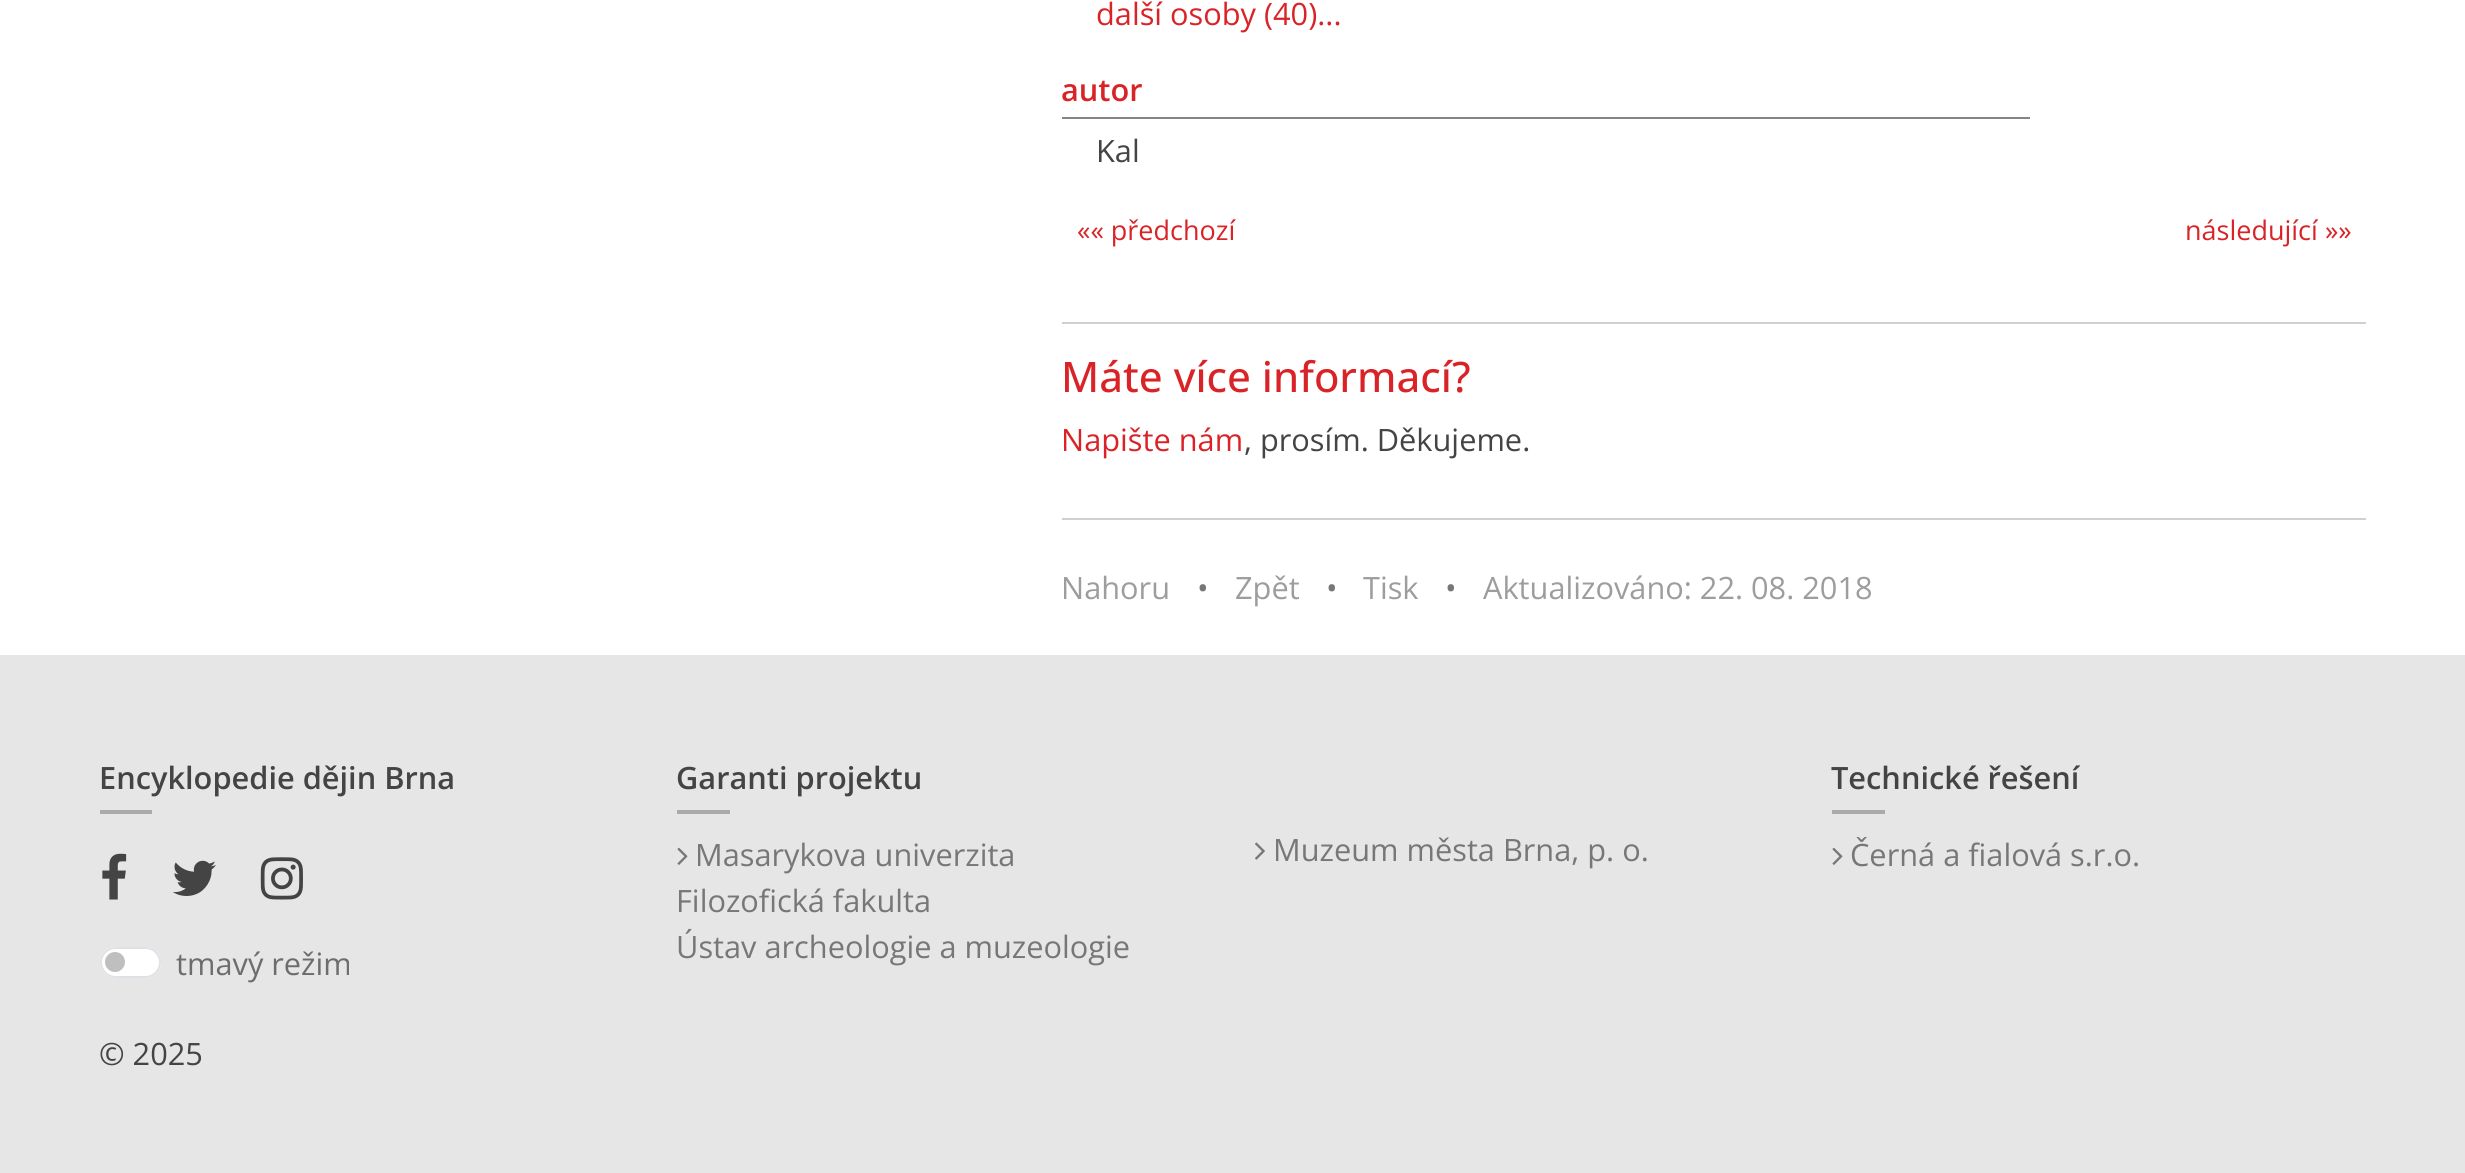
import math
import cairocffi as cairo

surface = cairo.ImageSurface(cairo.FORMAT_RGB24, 2465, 1173)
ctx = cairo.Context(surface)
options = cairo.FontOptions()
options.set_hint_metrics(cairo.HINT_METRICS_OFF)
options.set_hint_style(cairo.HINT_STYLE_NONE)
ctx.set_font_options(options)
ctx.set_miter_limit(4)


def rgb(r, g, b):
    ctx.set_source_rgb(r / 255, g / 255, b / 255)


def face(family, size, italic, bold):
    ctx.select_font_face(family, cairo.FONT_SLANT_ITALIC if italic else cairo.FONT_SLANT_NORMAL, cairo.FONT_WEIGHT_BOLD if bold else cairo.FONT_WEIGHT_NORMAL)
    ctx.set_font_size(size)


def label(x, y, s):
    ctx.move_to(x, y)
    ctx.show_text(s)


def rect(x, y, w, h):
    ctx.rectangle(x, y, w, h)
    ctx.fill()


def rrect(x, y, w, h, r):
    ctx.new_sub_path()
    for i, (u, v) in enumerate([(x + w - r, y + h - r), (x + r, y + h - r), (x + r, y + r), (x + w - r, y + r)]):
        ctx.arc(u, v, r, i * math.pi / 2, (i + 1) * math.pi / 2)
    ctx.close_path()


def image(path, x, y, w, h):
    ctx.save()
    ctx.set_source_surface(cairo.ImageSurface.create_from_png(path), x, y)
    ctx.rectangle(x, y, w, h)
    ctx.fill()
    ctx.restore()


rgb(255, 255, 255)
ctx.paint()
face('Open Sans', 30.75, 0, 0)
rgb(218, 35, 39)
label(1096, 25, 'další osoby (40)...')
rgb(132, 132, 132)
rect(1062, 117, 968, 2)
face('Open Sans SemiBold', 30.75, 0, 0)
rgb(218, 35, 39)
label(1061, 101, 'autor')
face('Open Sans', 30.75, 0, 0)
rgb(68, 68, 68)
label(1096, 162, 'Kal')
face('Open Sans', 27, 0, 0)
rgb(218, 35, 39)
label(1077, 240, '«« předchozí')
label(2185, 240, 'následující »»')
rgb(208, 208, 208)
rect(1062, 322, 1304, 2)
face('Open Sans Medium', 42, 0, 0)
rgb(218, 35, 39)
label(1061, 392, 'Máte více informací?')
face('Open Sans', 30.75, 0, 0)
label(1061, 451, 'Napište nám')
rgb(68, 68, 68)
label(1244, 451, ', prosím. Děkujeme.')
rgb(208, 208, 208)
rect(1062, 518, 1304, 2)
rgb(157, 157, 157)
label(1061, 599, 'Nahoru')
rgb(119, 119, 119)
label(1197, 599, '•')
rgb(157, 157, 157)
label(1235, 599, 'Zpět')
rgb(119, 119, 119)
label(1326, 599, '•')
rgb(157, 157, 157)
label(1363, 599, 'Tisk')
rgb(119, 119, 119)
label(1445, 599, '•')
rgb(157, 157, 157)
label(1483, 599, 'Aktualizováno: 22. 08. 2018')
rgb(230, 230, 230)
rect(0, 655, 2465, 518)
face('Open Sans SemiBold', 30.75, 0, 0)
rgb(68, 68, 68)
label(99, 789, 'Encyklopedie dějin Brna')
rgb(170, 170, 170)
rect(100, 810, 52, 4)
image('image0.png', 102, 853, 25, 47)
image('image1.png', 172, 860, 44, 36)
image('image2.png', 260, 857, 43, 43)
rgb(255, 255, 255)
rrect(100, 947, 61, 31, 15.5)
ctx.fill()
rgb(191, 191, 191)
ctx.arc(115, 962, 10, 0, 2 * math.pi)
ctx.fill()
rrect(101, 948, 59, 29, 14.5)
rgb(222, 226, 230)
ctx.stroke()
face('Open Sans', 30.75, 0, 0)
rgb(109, 109, 109)
label(176, 975, 'tmavý režim')
rgb(68, 68, 68)
label(99, 1065, '© 2025')
face('Open Sans SemiBold', 30.75, 0, 0)
label(676, 789, 'Garanti projektu')
rgb(170, 170, 170)
rect(677, 810, 53, 4)
image('image3.png', 677, 847, 11, 18)
face('Open Sans', 30.75, 0, 0)
rgb(119, 119, 119)
label(695, 866, 'Masarykova univerzita')
label(676, 912, 'Filozofická fakulta')
label(676, 958, 'Ústav archeologie a muzeologie')
image('image4.png', 1255, 842, 10, 18)
label(1273, 861, 'Muzeum města Brna, p. o.')
face('Open Sans SemiBold', 30.75, 0, 0)
rgb(68, 68, 68)
label(1831, 789, 'Technické řešení')
rgb(170, 170, 170)
rect(1832, 810, 53, 4)
image('image3.png', 1832, 847, 11, 18)
face('Open Sans', 30.75, 0, 0)
rgb(119, 119, 119)
label(1850, 866, 'Černá a fialová s.r.o.')
surface.write_to_png('render.png')
